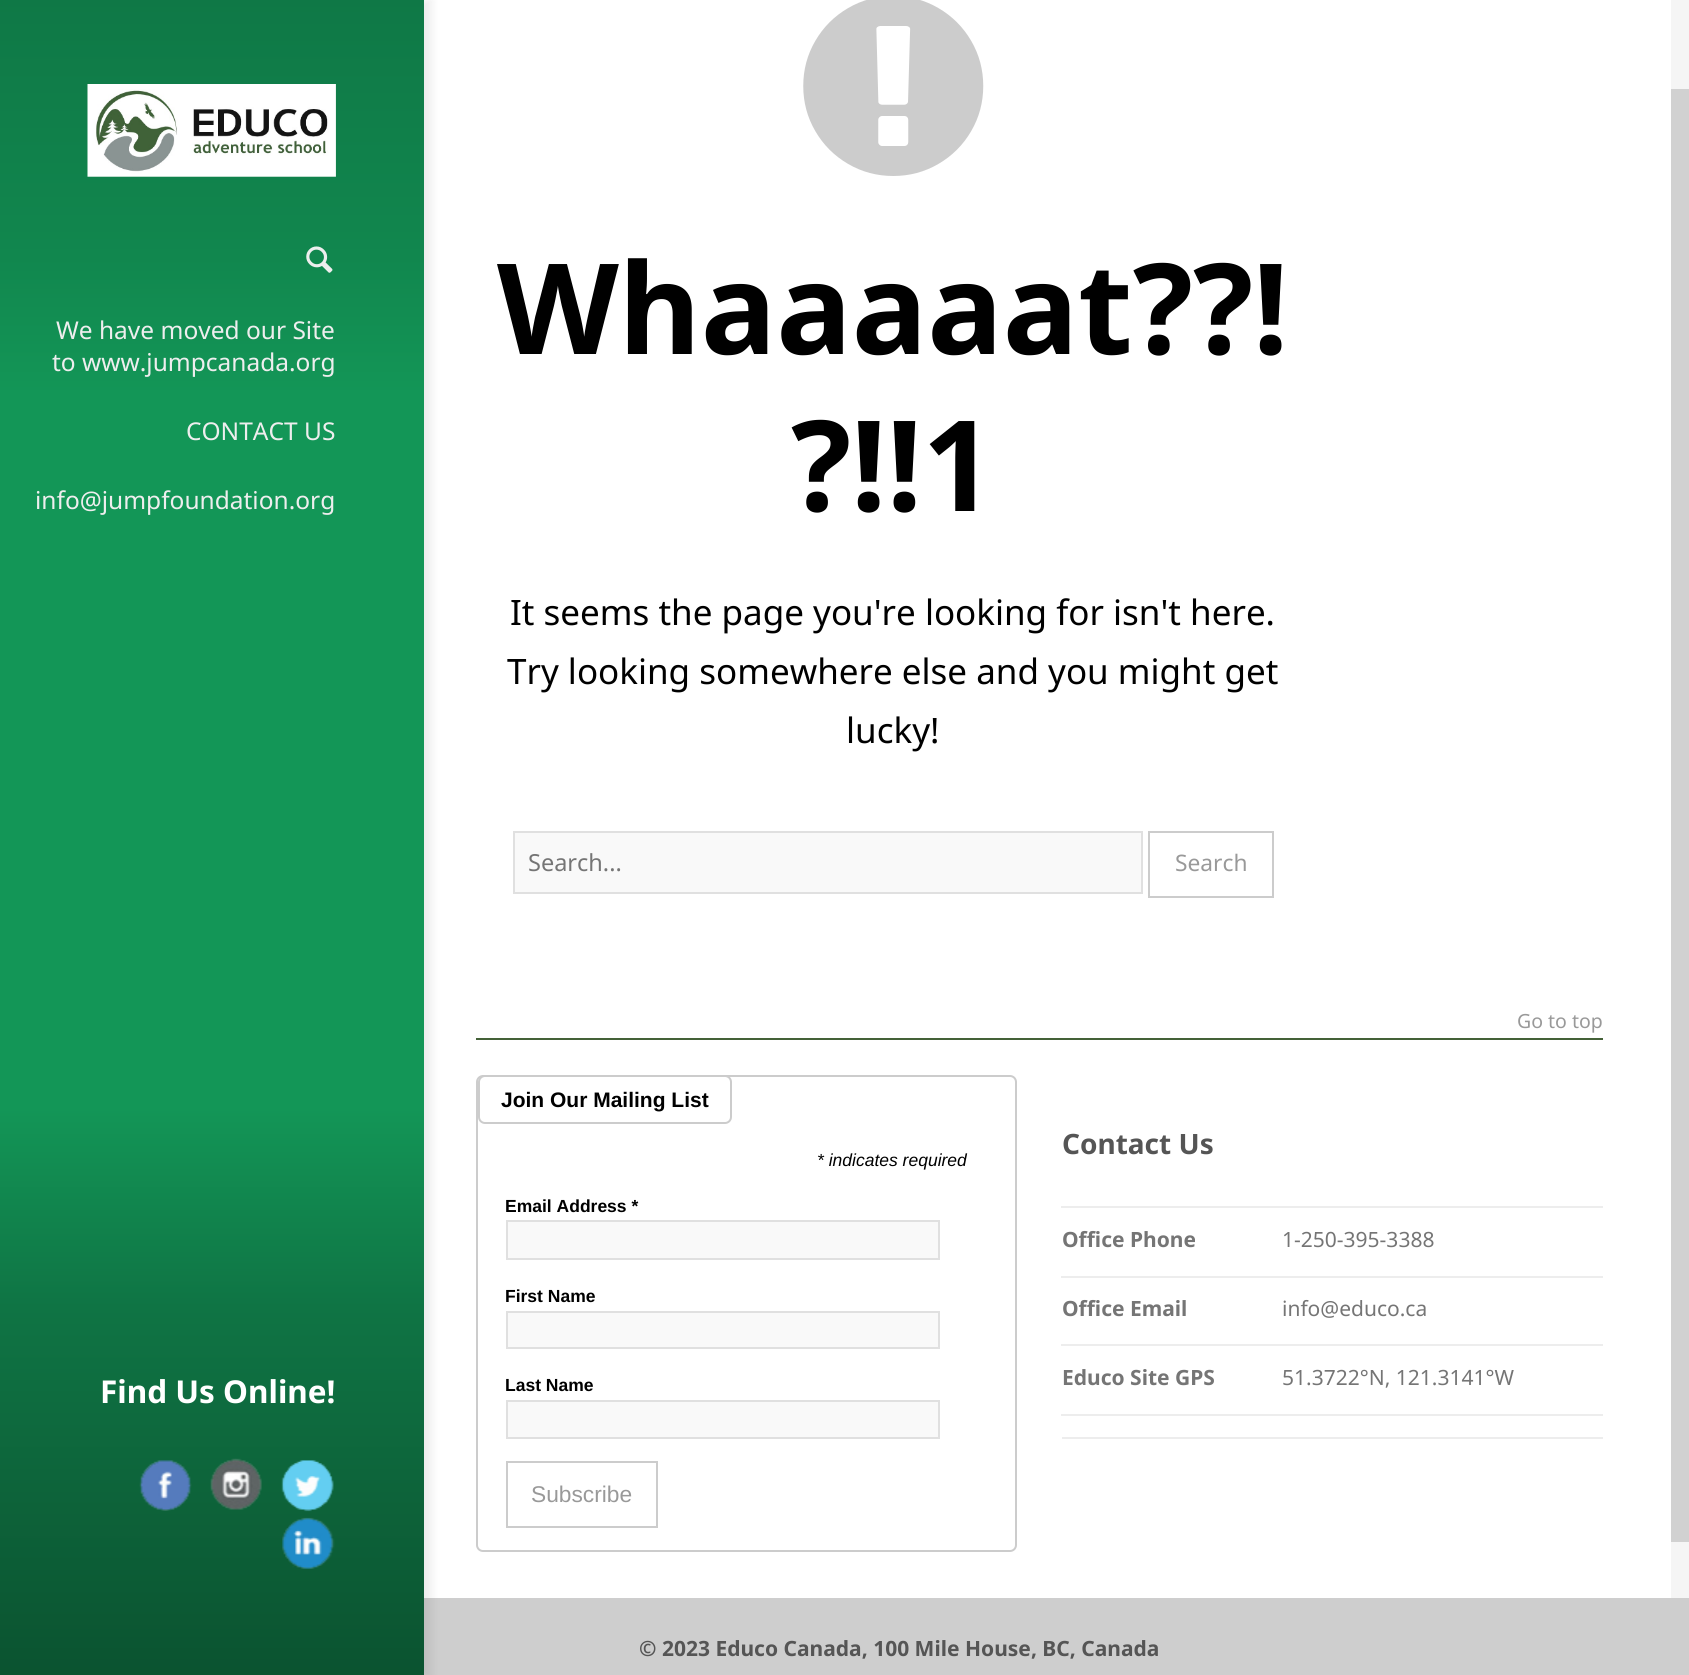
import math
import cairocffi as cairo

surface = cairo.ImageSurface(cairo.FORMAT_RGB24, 1689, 1675)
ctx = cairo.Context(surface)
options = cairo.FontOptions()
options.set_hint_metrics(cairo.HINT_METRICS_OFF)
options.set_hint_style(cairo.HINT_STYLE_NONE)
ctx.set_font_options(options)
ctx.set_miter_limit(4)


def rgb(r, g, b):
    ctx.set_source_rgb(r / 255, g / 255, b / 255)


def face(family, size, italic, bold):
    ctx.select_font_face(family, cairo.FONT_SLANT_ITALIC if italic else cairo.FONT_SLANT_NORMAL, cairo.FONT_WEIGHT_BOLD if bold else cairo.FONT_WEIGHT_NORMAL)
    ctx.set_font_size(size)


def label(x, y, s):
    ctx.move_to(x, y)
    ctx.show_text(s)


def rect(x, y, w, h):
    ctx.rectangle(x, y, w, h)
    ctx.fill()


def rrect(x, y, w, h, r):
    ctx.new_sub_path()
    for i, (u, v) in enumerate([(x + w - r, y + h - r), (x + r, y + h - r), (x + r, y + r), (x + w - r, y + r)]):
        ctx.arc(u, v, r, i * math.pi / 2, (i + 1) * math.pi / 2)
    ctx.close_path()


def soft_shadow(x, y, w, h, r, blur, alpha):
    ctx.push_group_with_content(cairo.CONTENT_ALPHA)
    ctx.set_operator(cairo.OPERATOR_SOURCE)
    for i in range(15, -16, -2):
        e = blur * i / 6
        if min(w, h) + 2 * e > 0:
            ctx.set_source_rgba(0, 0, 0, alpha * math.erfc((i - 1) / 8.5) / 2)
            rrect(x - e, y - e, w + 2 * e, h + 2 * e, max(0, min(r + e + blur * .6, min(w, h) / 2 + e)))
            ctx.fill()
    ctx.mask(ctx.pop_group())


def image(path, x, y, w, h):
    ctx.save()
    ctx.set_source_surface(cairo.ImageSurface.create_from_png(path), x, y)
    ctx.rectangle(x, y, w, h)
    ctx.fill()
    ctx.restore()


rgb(255, 255, 255)
ctx.paint()
rgb(245, 245, 245)
rect(1671, 0, 18, 1598)
rgb(206, 206, 206)
rect(424, 1598, 1265, 77)
rgb(0, 0, 0)
soft_shadow(7, 0, 424, 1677, 0, 5, 0.08)
rgb(19, 150, 87)
rect(0, 394, 424, 714)
gradient = cairo.LinearGradient(212, 0, 212, 394)
gradient.add_color_stop_rgba(0, 0.059, 0.471, 0.275, 1)
gradient.add_color_stop_rgba(0.65, 0.067, 0.529, 0.306, 1)
gradient.add_color_stop_rgba(1, 0.075, 0.588, 0.341, 1)
ctx.set_source(gradient)
rect(0, 0, 424, 394)
image('image0.png', 87, 84, 249, 93)
image('image1.png', 306, 246, 27, 27)
face('Noto Sans', 24.5, 0, 0)
rgb(238, 238, 238)
label(56, 339, 'We have moved our Site')
label(52, 371, 'to www.jumpcanada.org')
label(186, 440, 'CONTACT US')
label(35, 509, 'info@jumpfoundation.org')
gradient = cairo.LinearGradient(212, 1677, 212, 1108)
gradient.add_color_stop_rgba(0, 0.043, 0.325, 0.188, 1)
gradient.add_color_stop_rgba(0.65, 0.059, 0.455, 0.267, 1)
gradient.add_color_stop_rgba(1, 0.075, 0.588, 0.341, 1)
ctx.set_source(gradient)
rect(0, 1108, 424, 567)
face('Noto Sans', 31.5, 0, 1)
rgb(255, 255, 255)
label(100, 1403, 'Find Us Online!')
image('image2.png', 139, 1460, 53, 51)
image('image3.png', 210, 1458, 52, 52)
image('image4.png', 281, 1460, 53, 52)
image('image5.png', 282, 1517, 53, 52)
image('image6.png', 803, 0, 181, 176)
face('Noto Sans', 126, 0, 1)
rgb(0, 0, 0)
label(497, 354, 'Whaaaaat??!')
label(791, 511, '?!!1')
face('Noto Sans', 35, 0, 0)
label(510, 625, 'It seems the page you\'re looking for isn\'t here.')
label(507, 684, 'Try looking somewhere else and you might get')
label(846, 743, 'lucky!')
rgb(249, 249, 249)
ctx.rectangle(514, 832, 628, 61)
ctx.fill_preserve()
rgb(224, 224, 224)
ctx.stroke()
face('Noto Sans', 23.5, 0, 0)
rgb(117, 117, 117)
label(528, 871, 'Search...')
ctx.rectangle(1149, 832, 124, 65)
rgb(204, 204, 204)
ctx.stroke()
face('Noto Sans', 22.75, 0, 0)
rgb(153, 153, 153)
label(1175, 871, 'Search')
rgb(68, 97, 56)
rect(476, 1038, 1127, 2)
face('Noto Sans', 19.5, 0, 0)
rgb(153, 153, 153)
label(1517, 1028, 'Go to top')
rrect(477, 1076, 539, 475, 6)
rgb(204, 204, 204)
ctx.stroke()
rgb(255, 255, 255)
rrect(479, 1076, 252, 47, 6)
ctx.fill_preserve()
rgb(204, 204, 204)
ctx.stroke()
face('Liberation Sans', 21, 0, 1)
rgb(0, 0, 0)
label(501, 1107, 'Join Our Mailing List')
face('Liberation Sans', 17.5, 1, 0)
label(817, 1166, '* indicates required')
face('Liberation Sans', 17.5, 0, 1)
label(505, 1212, 'Email Address *')
rgb(249, 249, 249)
ctx.rectangle(507, 1221, 432, 38)
ctx.fill_preserve()
rgb(224, 224, 224)
ctx.stroke()
rgb(0, 0, 0)
label(505, 1302, 'First Name')
rgb(249, 249, 249)
ctx.rectangle(507, 1312, 432, 36)
ctx.fill_preserve()
rgb(224, 224, 224)
ctx.stroke()
rgb(0, 0, 0)
label(505, 1391, 'Last Name')
rgb(249, 249, 249)
ctx.rectangle(507, 1401, 432, 37)
ctx.fill_preserve()
rgb(224, 224, 224)
ctx.stroke()
ctx.rectangle(507, 1462, 150, 65)
rgb(204, 204, 204)
ctx.stroke()
face('Liberation Sans', 22.75, 0, 0)
rgb(153, 153, 153)
label(531, 1502, 'Subscribe')
face('Noto Sans', 28, 0, 1)
rgb(85, 85, 85)
label(1062, 1154, 'Contact Us')
rgb(237, 237, 237)
rect(1062, 1437, 541, 2)
face('Noto Sans', 21, 0, 1)
rgb(117, 117, 117)
label(1062, 1247, 'Office Phone')
rgb(237, 237, 237)
rect(1061, 1206, 542, 2)
face('Noto Sans', 21, 0, 0)
rgb(117, 117, 117)
label(1282, 1247, '1-250-395-3388')
face('Noto Sans', 21, 0, 1)
label(1062, 1316, 'Office Email')
rgb(237, 237, 237)
rect(1061, 1276, 542, 2)
face('Noto Sans', 21, 0, 0)
rgb(117, 117, 117)
label(1282, 1316, 'info@educo.ca')
face('Noto Sans', 21, 0, 1)
label(1062, 1385, 'Educo Site GPS')
rgb(237, 237, 237)
rect(1061, 1344, 542, 2)
face('Noto Sans', 21, 0, 0)
rgb(117, 117, 117)
label(1282, 1385, '51.3722°N, 121.3141°W')
rgb(237, 237, 237)
rect(1061, 1414, 542, 2)
face('Noto Sans', 21, 0, 1)
rgb(85, 85, 85)
label(639, 1656, '© 2023 Educo Canada, 100 Mile House, BC, Canada')
rgb(209, 209, 209)
rect(1671, 89, 18, 1453)
surface.write_to_png('render.png')
